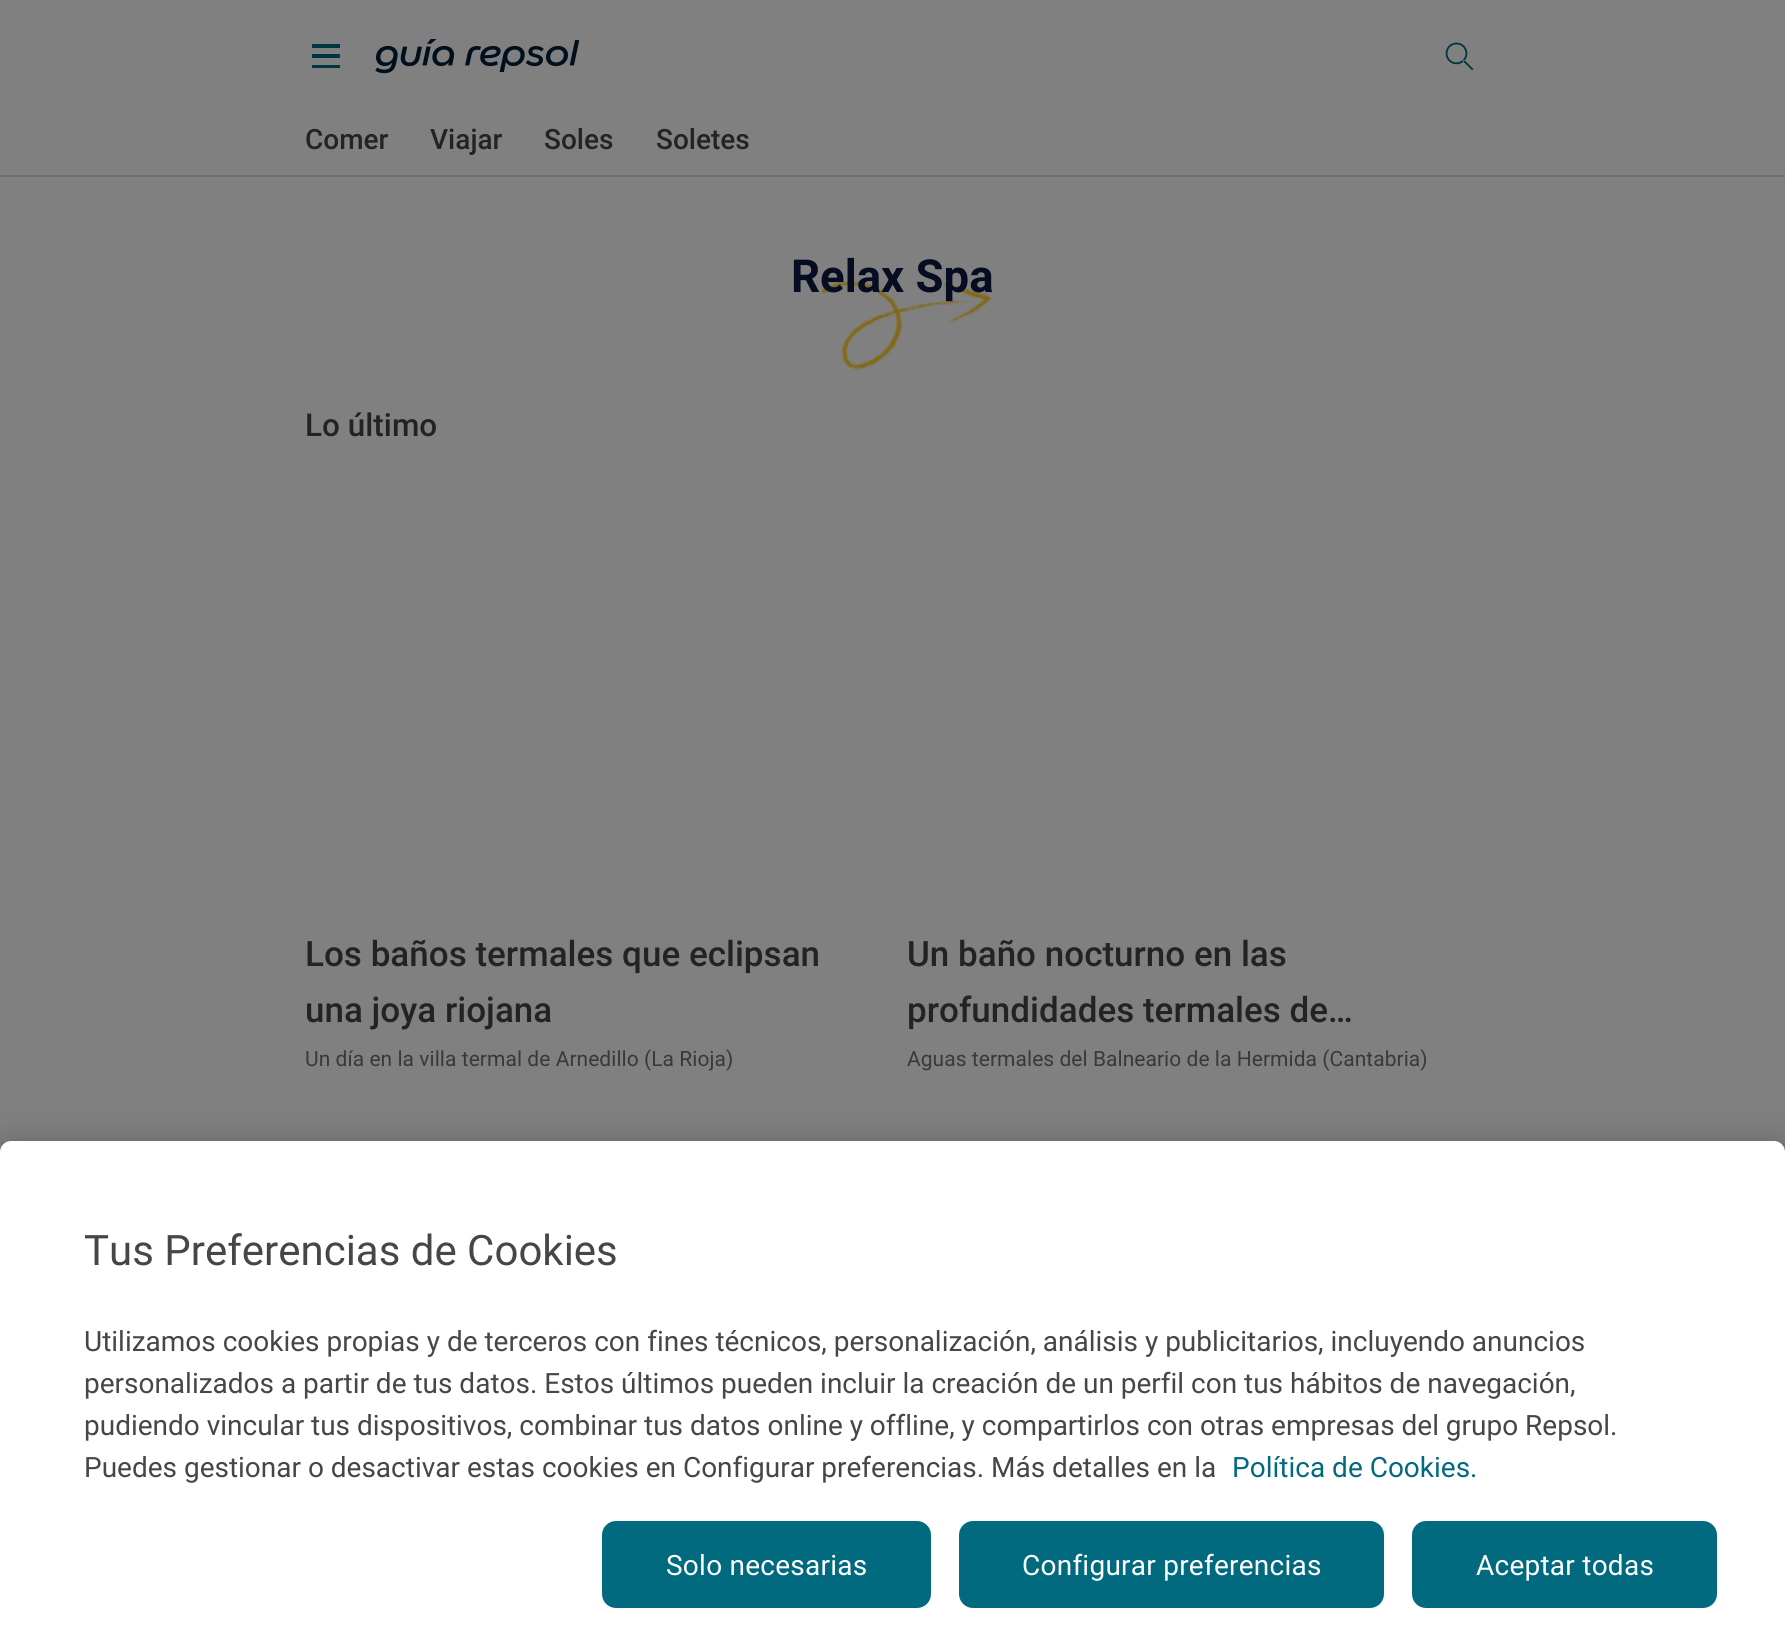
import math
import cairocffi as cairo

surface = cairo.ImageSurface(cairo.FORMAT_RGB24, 1785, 1649)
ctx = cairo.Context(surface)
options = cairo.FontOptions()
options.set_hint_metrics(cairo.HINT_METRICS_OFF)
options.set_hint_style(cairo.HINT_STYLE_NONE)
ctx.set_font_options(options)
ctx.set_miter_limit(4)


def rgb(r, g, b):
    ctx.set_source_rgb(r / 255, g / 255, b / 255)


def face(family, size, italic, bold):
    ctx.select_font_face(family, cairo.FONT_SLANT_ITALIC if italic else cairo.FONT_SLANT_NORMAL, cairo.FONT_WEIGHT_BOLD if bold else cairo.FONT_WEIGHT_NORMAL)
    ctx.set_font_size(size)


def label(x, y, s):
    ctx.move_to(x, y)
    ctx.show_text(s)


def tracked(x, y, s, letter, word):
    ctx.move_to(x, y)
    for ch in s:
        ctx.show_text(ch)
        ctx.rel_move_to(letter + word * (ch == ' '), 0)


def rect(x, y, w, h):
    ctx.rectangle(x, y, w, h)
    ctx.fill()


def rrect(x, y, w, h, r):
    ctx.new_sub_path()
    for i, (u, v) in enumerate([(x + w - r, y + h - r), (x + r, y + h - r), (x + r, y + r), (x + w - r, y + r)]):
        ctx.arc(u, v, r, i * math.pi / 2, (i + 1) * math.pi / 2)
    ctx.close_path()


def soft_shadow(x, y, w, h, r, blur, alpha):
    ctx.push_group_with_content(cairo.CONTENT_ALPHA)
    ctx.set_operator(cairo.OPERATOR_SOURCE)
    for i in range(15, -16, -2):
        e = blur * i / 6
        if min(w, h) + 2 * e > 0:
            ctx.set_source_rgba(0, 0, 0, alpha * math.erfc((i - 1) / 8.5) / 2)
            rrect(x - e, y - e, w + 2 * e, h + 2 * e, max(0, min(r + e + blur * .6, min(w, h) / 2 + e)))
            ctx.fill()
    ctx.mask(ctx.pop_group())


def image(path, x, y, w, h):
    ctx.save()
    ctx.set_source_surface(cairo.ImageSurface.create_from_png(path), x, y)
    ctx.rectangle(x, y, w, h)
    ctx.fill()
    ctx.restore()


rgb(124, 124, 124)
ctx.paint()
rgb(128, 128, 128)
rect(0, 0, 1785, 175)
rgb(111, 111, 111)
rect(0, 175, 1785, 2)
rgb(1, 53, 64)
rect(312, 44, 28, 4)
rect(312, 54, 28, 4)
rect(312, 65, 28, 3)
image('image0.png', 375, 39, 204, 35)
image('image1.png', 1445, 42, 29, 29)
face('Roboto Medium', 28, 0, 0)
rgb(35, 35, 35)
label(305, 149, 'Comer')
label(430, 149, 'Viajar')
label(544, 149, 'Soles')
label(656, 149, 'Soletes')
rgb(128, 128, 128)
rect(0, 177, 1785, 966)
image('image2.png', 820, 281, 172, 89)
face('Roboto', 45.5, 0, 1)
rgb(6, 12, 33)
label(791, 292, 'Relax Spa')
face('Roboto Medium', 31.5, 0, 0)
rgb(35, 35, 35)
label(305, 436, 'Lo último')
face('Roboto Medium', 35, 0, 0)
label(305, 966, 'Los baños termales que eclipsan')
label(305, 1022, 'una joya riojana')
face('Roboto', 21, 0, 0)
rgb(57, 57, 57)
tracked(305, 1066, 'Un día en la villa termal de Arnedillo (La Rioja)', 0.05, 0)
face('Roboto Medium', 35, 0, 0)
rgb(35, 35, 35)
label(907, 966, 'Un baño nocturno en las')
label(907, 1022, 'profundidades termales de…')
face('Roboto', 21, 0, 0)
rgb(57, 57, 57)
tracked(907, 1066, 'Aguas termales del Balneario de la Hermida (Cantabria)', 0.05, 0)
rgb(0, 0, 0)
soft_shadow(0, 1141, 1785, 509, 11, 16, 0.2)
rgb(255, 255, 255)
ctx.new_path()
ctx.move_to(11, 1141)
ctx.line_to(1774, 1141)
ctx.curve_to(1780, 1141, 1785, 1146, 1785, 1152)
ctx.line_to(1785, 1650)
ctx.line_to(0, 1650)
ctx.line_to(0, 1152)
ctx.curve_to(0, 1146, 5, 1141, 11, 1141)
ctx.close_path()
ctx.fill()
face('Roboto', 42, 0, 0)
rgb(70, 70, 70)
label(84, 1265, 'Tus Preferencias de Cookies')
face('Roboto', 28, 0, 0)
label(84, 1351, 'Utilizamos cookies propias y de terceros con fines técnicos, personalización, análisis y publicitarios, incluyendo anuncios')
label(84, 1393, 'personalizados a partir de tus datos. Estos últimos pueden incluir la creación de un perfil con tus hábitos de navegación,')
label(84, 1435, 'pudiendo vincular tus dispositivos, combinar tus datos online y offline, y compartirlos con otras empresas del grupo Repsol.')
label(84, 1477, 'Puedes gestionar o desactivar estas cookies en Configurar preferencias. Más detalles en la')
rgb(1, 106, 127)
label(1232, 1477, 'Política de Cookies.')
rrect(602, 1521, 329, 87, 14)
ctx.fill()
rgb(255, 255, 255)
tracked(666, 1575, 'Solo necesarias', 0.25, 0)
rgb(1, 106, 127)
rrect(959, 1521, 425, 87, 14)
ctx.fill()
rgb(255, 255, 255)
tracked(1022, 1575, 'Configurar preferencias', 0.25, 0)
rgb(1, 106, 127)
rrect(1412, 1521, 305, 87, 14)
ctx.fill()
rgb(255, 255, 255)
tracked(1476, 1575, 'Aceptar todas', 0.25, 0)
surface.write_to_png('render.png')
